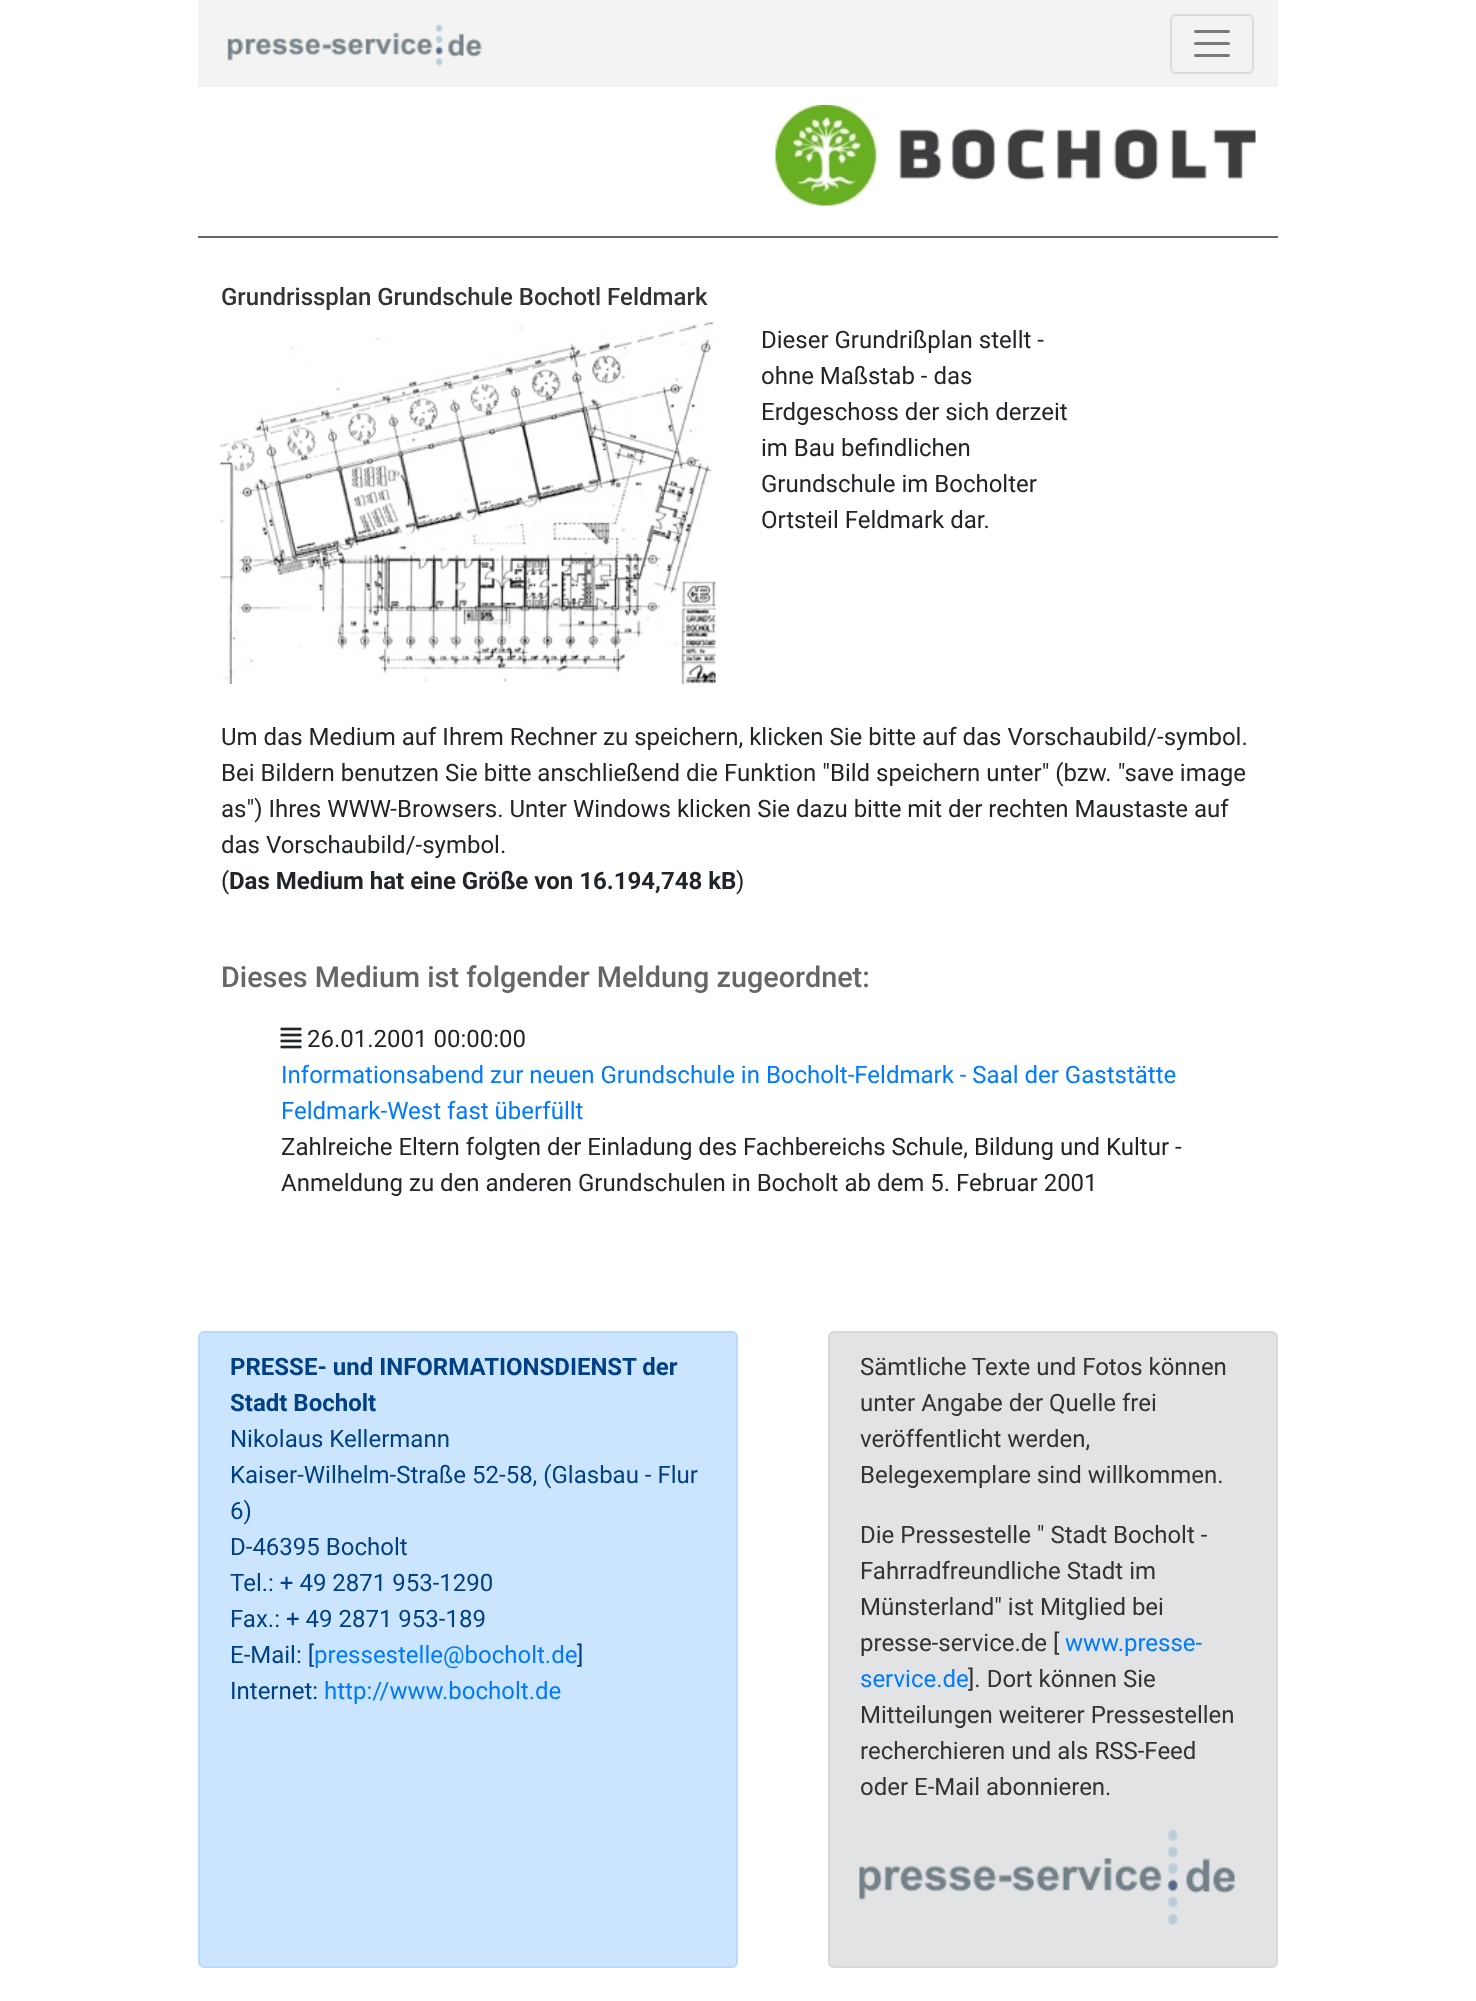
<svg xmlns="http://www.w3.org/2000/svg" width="1476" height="2001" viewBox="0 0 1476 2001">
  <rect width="100%" height="100%" fill="#ffffff"/>
  <rect x="198" y="0" width="1080" height="87" fill="#f3f3f3"/>
  <image x="227" y="24" width="255" height="43" href="img1.png"/>
  <rect x="1171" y="15" width="82" height="58" rx="5" fill="none" stroke="#dbdbdb" stroke-width="2"/>
  <path d="M1195.5 31.5H1228.5M1195.5 43.5H1228.5M1195.5 55.5H1228.5" fill="none" stroke="#7a7a7a" stroke-width="3" stroke-linecap="round"/>
  <rect x="198" y="236" width="1080" height="2" fill="#666666"/>
  <image x="775" y="105" width="481" height="101" href="img2.png"/>
  <text x="221" y="305" font-family="Roboto" font-size="24" font-weight="500" fill="#333333">Grundrissplan Grundschule Bochotl Feldmark</text>
  <image x="220" y="322" width="496" height="362" href="img3.png"/>
  <text x="761" y="348" font-family="Roboto" font-size="24" fill="#212529">Dieser Grundrißplan stellt -</text>
  <text x="761" y="384" font-family="Roboto" font-size="24" fill="#212529">ohne Maßstab - das</text>
  <text x="761" y="420" font-family="Roboto" font-size="24" fill="#212529">Erdgeschoss der sich derzeit</text>
  <text x="761" y="456" font-family="Roboto" font-size="24" fill="#212529">im Bau befindlichen</text>
  <text x="761" y="492" font-family="Roboto" font-size="24" fill="#212529">Grundschule im Bocholter</text>
  <text x="761" y="528" font-family="Roboto" font-size="24" fill="#212529">Ortsteil Feldmark dar.</text>
  <text x="221" y="745" font-family="Roboto" font-size="24" fill="#212529">Um das Medium auf Ihrem Rechner zu speichern, klicken Sie bitte auf das Vorschaubild/-symbol.</text>
  <text x="221" y="781" font-family="Roboto" font-size="24" fill="#212529">Bei Bildern benutzen Sie bitte anschließend die Funktion "Bild speichern unter" (bzw. "save image</text>
  <text x="221" y="817" font-family="Roboto" font-size="24" fill="#212529">as") Ihres WWW-Browsers. Unter Windows klicken Sie dazu bitte mit der rechten Maustaste auf</text>
  <text x="221" y="853" font-family="Roboto" font-size="24" fill="#212529">das Vorschaubild/-symbol.</text>
  <text x="221" y="889" font-family="Roboto" font-size="24" fill="#212529">(</text>
  <text x="229" y="889" font-family="Roboto" font-size="24" font-weight="bold" fill="#212529">Das Medium hat eine Größe von 16.194,748 kB</text>
  <text x="736" y="889" font-family="Roboto" font-size="24" fill="#212529">)</text>
  <text x="221" y="987" font-family="Roboto" font-size="28.8" font-weight="500" fill="#666666">Dieses Medium ist folgender Meldung zugeordnet:</text>
  <image x="280" y="1027" width="22" height="22" href="img4.png"/>
  <text x="307" y="1047" font-family="Roboto" font-size="24" fill="#212529">26.01.2001 00:00:00</text>
  <text x="281" y="1083" font-family="Roboto" font-size="24" fill="#007bff">Informationsabend zur neuen Grundschule in Bocholt-Feldmark - Saal der Gaststätte</text>
  <text x="281" y="1119" font-family="Roboto" font-size="24" fill="#007bff">Feldmark-West fast überfüllt</text>
  <text x="281" y="1155" font-family="Roboto" font-size="24" fill="#212529">Zahlreiche Eltern folgten der Einladung des Fachbereichs Schule, Bildung und Kultur -</text>
  <text x="281" y="1191" font-family="Roboto" font-size="24" fill="#212529">Anmeldung zu den anderen Grundschulen in Bocholt ab dem 5. Februar 2001</text>
  <rect x="199" y="1332" width="538" height="635" rx="5" fill="#cce5ff" stroke="#b8daff" stroke-width="2"/>
  <text x="230" y="1375" font-family="Roboto" font-size="24" font-weight="bold" fill="#004085">PRESSE- und INFORMATIONSDIENST der</text>
  <text x="230" y="1411" font-family="Roboto" font-size="24" font-weight="bold" fill="#004085">Stadt Bocholt</text>
  <text x="230" y="1447" font-family="Roboto" font-size="24" fill="#004085">Nikolaus Kellermann</text>
  <text x="230" y="1483" font-family="Roboto" font-size="24" fill="#004085">Kaiser-Wilhelm-Straße 52-58, (Glasbau - Flur</text>
  <text x="230" y="1519" font-family="Roboto" font-size="24" fill="#004085">6)</text>
  <text x="230" y="1555" font-family="Roboto" font-size="24" fill="#004085">D-46395 Bocholt</text>
  <text x="230" y="1591" font-family="Roboto" font-size="24" fill="#004085">Tel.: + 49 2871 953-1290</text>
  <text x="230" y="1627" font-family="Roboto" font-size="24" fill="#004085">Fax.: + 49 2871 953-189</text>
  <text x="230" y="1663" font-family="Roboto" font-size="24" fill="#004085">E-Mail: [</text>
  <text x="314" y="1663" font-family="Roboto" font-size="24" fill="#007bff">pressestelle@bocholt.de</text>
  <text x="577" y="1663" font-family="Roboto" font-size="24" fill="#004085">]</text>
  <text x="230" y="1699" font-family="Roboto" font-size="24" fill="#004085">Internet:</text>
  <text x="324" y="1699" font-family="Roboto" font-size="24" fill="#007bff">http://www.bocholt.de</text>
  <rect x="829" y="1332" width="448" height="635" rx="5" fill="#e2e3e5" stroke="#d6d8db" stroke-width="2"/>
  <text x="860" y="1375" font-family="Roboto" font-size="24" fill="#333333">Sämtliche Texte und Fotos können</text>
  <text x="860" y="1411" font-family="Roboto" font-size="24" fill="#333333">unter Angabe der Quelle frei</text>
  <text x="860" y="1447" font-family="Roboto" font-size="24" fill="#333333">veröffentlicht werden,</text>
  <text x="860" y="1483" font-family="Roboto" font-size="24" fill="#333333">Belegexemplare sind willkommen.</text>
  <text x="860" y="1543" font-family="Roboto" font-size="24" fill="#333333">Die Pressestelle " Stadt Bocholt -</text>
  <text x="860" y="1579" font-family="Roboto" font-size="24" fill="#333333">Fahrradfreundliche Stadt im</text>
  <text x="860" y="1615" font-family="Roboto" font-size="24" fill="#333333">Münsterland" ist Mitglied bei</text>
  <text x="860" y="1651" font-family="Roboto" font-size="24" fill="#333333">presse-service.de [</text>
  <text x="1065" y="1651" font-family="Roboto" font-size="24" fill="#007bff">www.presse-</text>
  <text x="860" y="1687" font-family="Roboto" font-size="24" fill="#007bff">service.de</text>
  <text x="968" y="1687" font-family="Roboto" font-size="24" fill="#333333">]. Dort können Sie</text>
  <text x="860" y="1723" font-family="Roboto" font-size="24" fill="#333333">Mitteilungen weiterer Pressestellen</text>
  <text x="860" y="1759" font-family="Roboto" font-size="24" fill="#333333">recherchieren und als RSS-Feed</text>
  <text x="860" y="1795" font-family="Roboto" font-size="24" fill="#333333">oder E-Mail abonnieren.</text>
  <image x="859" y="1830" width="376" height="95" href="img5.png"/>
</svg>
